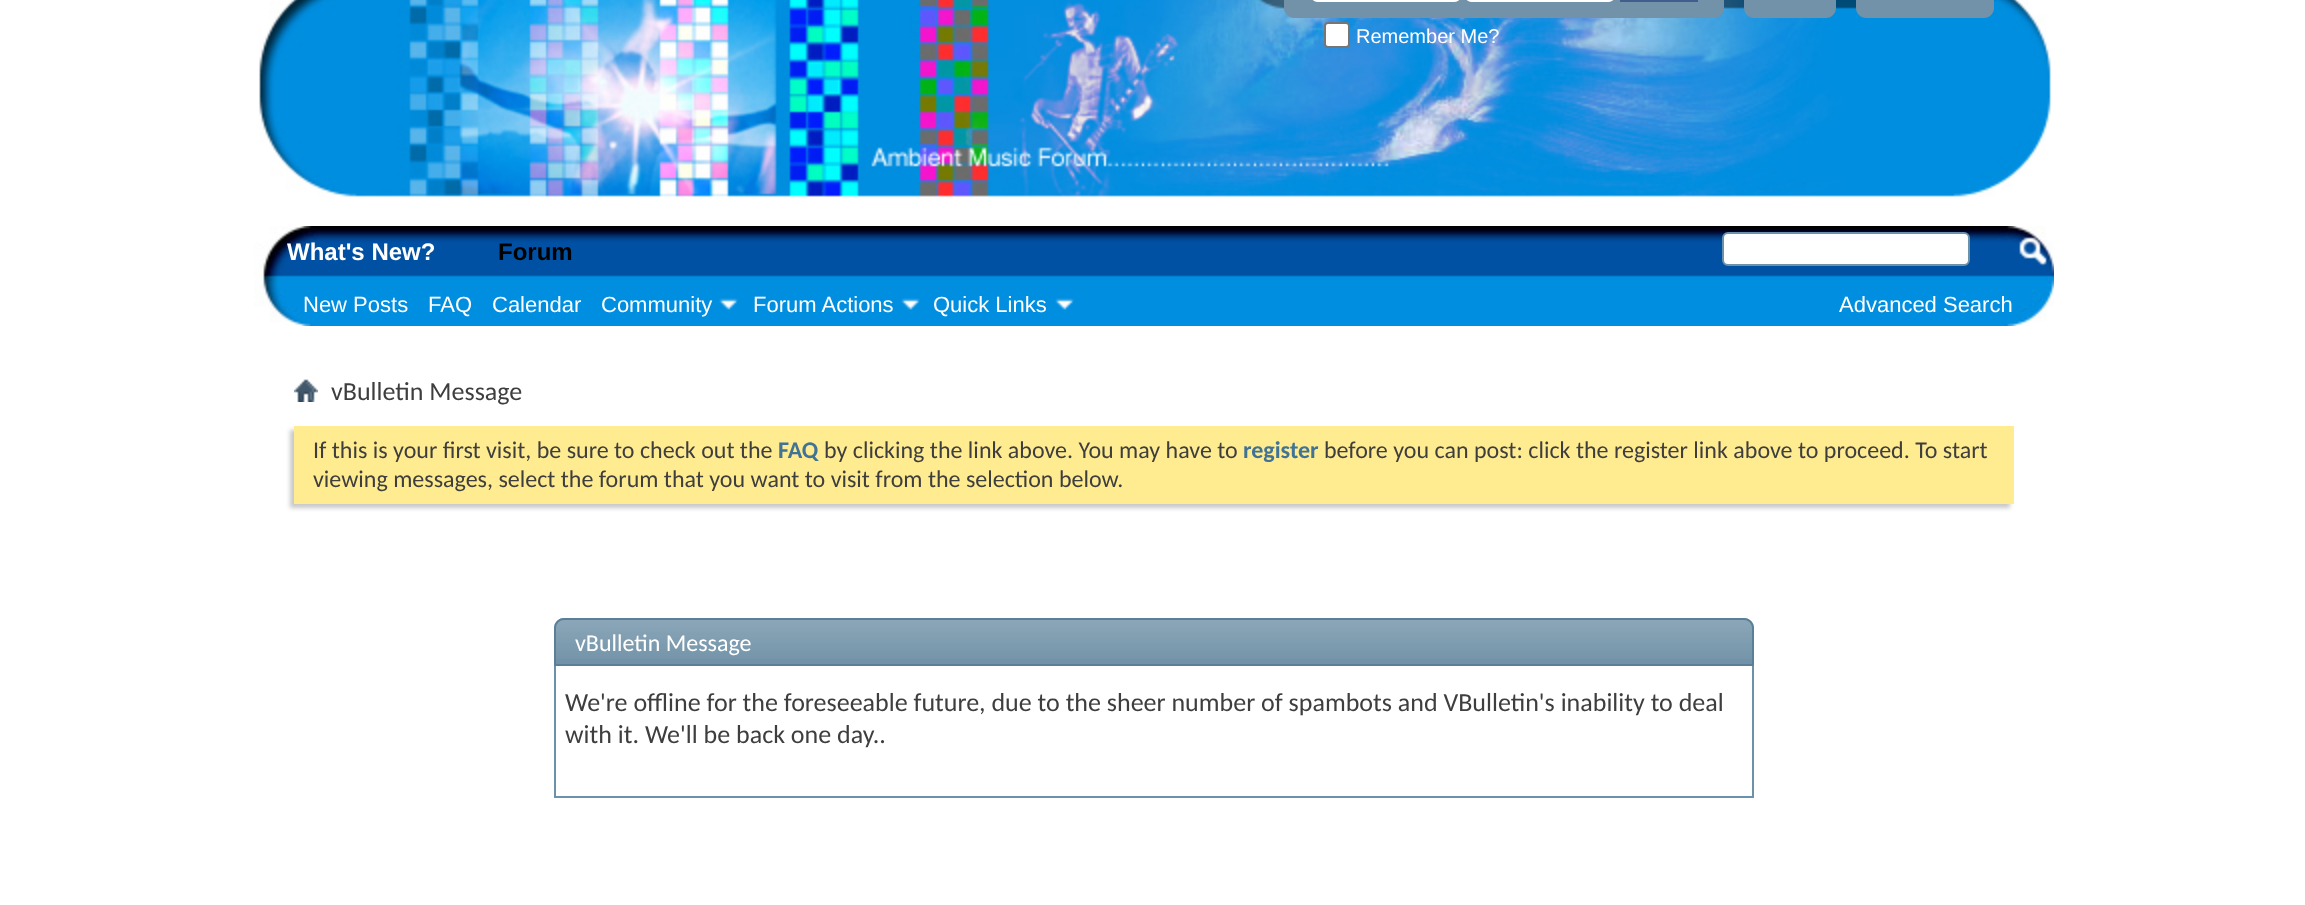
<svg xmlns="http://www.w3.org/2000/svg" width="2305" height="905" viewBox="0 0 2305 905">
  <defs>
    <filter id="blur1" x="-50%" y="-200%" width="200%" height="500%"><feGaussianBlur stdDeviation="2"/></filter>
  </defs>
  <rect width="100%" height="100%" fill="#ffffff"/>
  <image x="259" y="0" width="1792" height="197" href="img1.png"/>
  <path d="M1744-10H1836V8C1836 13.5 1831.5 18 1826 18H1754C1748.5 18 1744 13.5 1744 8Z" fill="#7192a8"/>
  <path d="M1856-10H1994V8C1994 13.5 1989.5 18 1984 18H1866C1860.5 18 1856 13.5 1856 8Z" fill="#7192a8"/>
  <path d="M1284-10H1724V8C1724 13.5 1719.5 18 1714 18H1294C1288.5 18 1284 13.5 1284 8Z" fill="#7192a8"/>
  <rect x="1312" y="-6" width="148" height="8" rx="6" fill="#ffffff"/>
  <rect x="1466" y="-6" width="148" height="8" rx="6" fill="#ffffff"/>
  <rect x="1621" y="-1" width="76" height="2" fill="none" stroke="#415d8d" stroke-width="2"/>
  <rect x="1325" y="23" width="24" height="24" rx="3" fill="#ffffff" stroke="#767676" stroke-width="2"/>
  <text x="1356" y="43" font-family="Liberation Sans" font-size="20" fill="#ffffff">Remember Me?</text>
  <image x="254" y="226" width="1800" height="100" href="img2.png"/>
  <text x="287" y="260" font-family="Liberation Sans" font-size="24" font-weight="bold" fill="#ffffff">What's New?</text>
  <text x="498" y="260" font-family="Liberation Sans" font-size="24" font-weight="bold" fill="#000000">Forum</text>
  <text x="303" y="312" font-family="Liberation Sans" font-size="22" fill="#ffffff">New Posts</text>
  <text x="428" y="312" font-family="Liberation Sans" font-size="22" fill="#ffffff">FAQ</text>
  <text x="492" y="312" font-family="Liberation Sans" font-size="22" fill="#ffffff">Calendar</text>
  <text x="601" y="312" font-family="Liberation Sans" font-size="22" fill="#ffffff">Community</text>
  <image x="719" y="298" width="19" height="12" href="img3.png"/>
  <text x="753" y="312" font-family="Liberation Sans" font-size="22" fill="#ffffff">Forum Actions</text>
  <image x="901" y="298" width="19" height="12" href="img3.png"/>
  <text x="933" y="312" font-family="Liberation Sans" font-size="22" fill="#ffffff">Quick Links</text>
  <image x="1055" y="298" width="19" height="12" href="img3.png"/>
  <rect x="1723" y="233" width="246" height="32" rx="5" fill="#ffffff" stroke="#6b91ab" stroke-width="2"/>
  <image x="2019" y="237" width="28" height="29" href="img4.png"/>
  <text x="1839" y="312" font-family="Liberation Sans" font-size="22" fill="#ffffff">Advanced Search</text>
  <image x="294" y="379" width="24" height="23" href="img5.png"/>
  <text x="331" y="400" font-family="Carlito" font-size="26" fill="#3e3e3e">vBulletin Message</text>
  <rect x="290" y="430" width="1720" height="78" fill="#c8c8c8" filter="url(#blur1)"/>
  <rect x="294" y="426" width="1720" height="78" fill="#ffeb90"/>
  <text x="313" y="458" font-family="Carlito" font-size="24" fill="#3e3e3e">If this is your first visit, be sure to check out the</text>
  <text x="778" y="458" font-family="Carlito" font-size="24" font-weight="bold" fill="#417394">FAQ</text>
  <text x="824" y="458" font-family="Carlito" font-size="24" fill="#3e3e3e">by clicking the link above. You may have to</text>
  <text x="1243" y="458" font-family="Carlito" font-size="24" font-weight="bold" fill="#417394">register</text>
  <text x="1324" y="458" font-family="Carlito" font-size="24" fill="#3e3e3e">before you can post: click the register link above to proceed. To start</text>
  <text x="313" y="487" font-family="Carlito" font-size="24" fill="#3e3e3e">viewing messages, select the forum that you want to visit from the selection below.</text>
  <path d="M564 618H1744C1749.5 618 1754 622.5 1754 628V666H554V628C554 622.5 558.5 618 564 618Z" fill="#7192a8"/>
  <image x="554" y="620" width="1200" height="39" href="img6.png"/>
  <path d="M564 619H1744C1749 619 1753 623 1753 628V665H555V628C555 623 559 619 564 619Z" fill="none" stroke="#5a7f97" stroke-width="2"/>
  <text x="575" y="651" font-family="Carlito" font-size="24" fill="#ffffff">vBulletin Message</text>
  <rect x="1752" y="666" width="2" height="132" fill="#6b91ab"/>
  <rect x="554" y="796" width="1200" height="2" fill="#6b91ab"/>
  <rect x="554" y="666" width="2" height="132" fill="#6b91ab"/>
  <text x="565" y="711" font-family="Carlito" font-size="26" fill="#3e3e3e">We're offline for the foreseeable future, due to the sheer number of spambots and VBulletin's inability to deal</text>
  <text x="565" y="743" font-family="Carlito" font-size="26" fill="#3e3e3e">with it. We'll be back one day..</text>
</svg>
